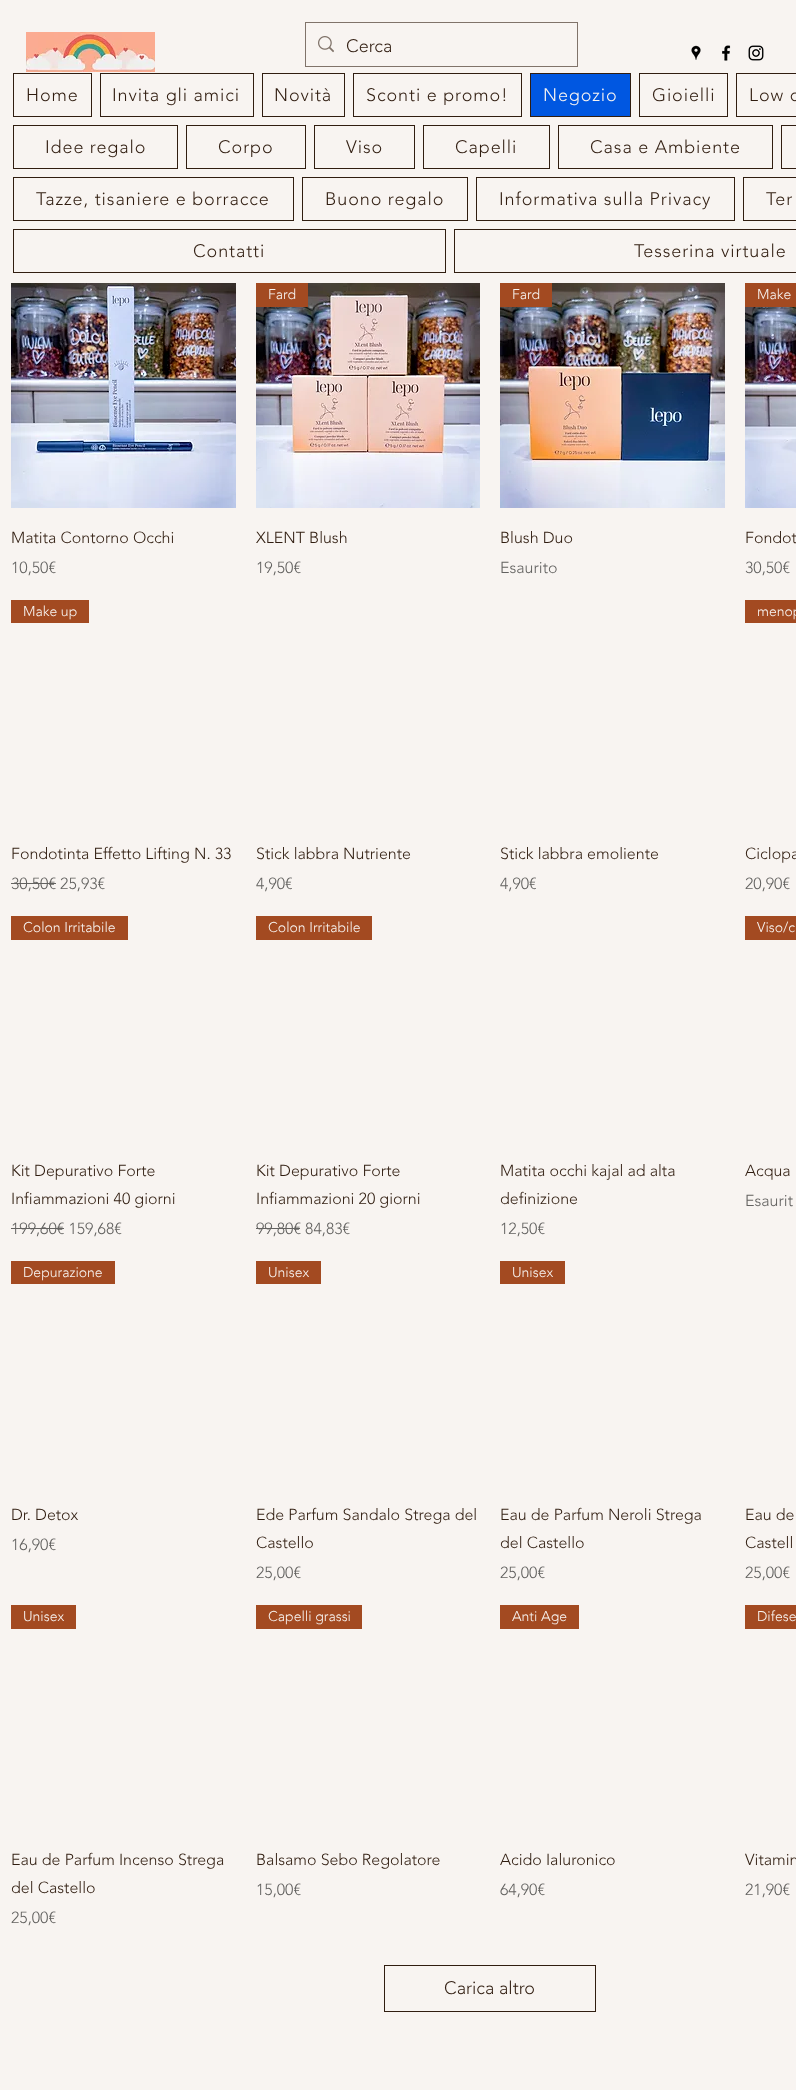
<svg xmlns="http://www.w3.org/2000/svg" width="796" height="2090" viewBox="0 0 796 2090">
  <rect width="100%" height="100%" fill="#f8f4f1"/>
  <image x="26" y="32" width="129" height="40" href="img1.png"/>
  <image x="691" y="45" width="10" height="15" href="img2.png"/>
  <image x="722" y="45" width="9" height="16" href="img3.png"/>
  <image x="748" y="45" width="16" height="16" href="img4.png"/>
  <rect x="305.5" y="22.5" width="272" height="44" fill="none" stroke="#80736a"/>
  <image x="318" y="36" width="16" height="17" href="img5.png"/>
  <text x="346" y="52" font-family="'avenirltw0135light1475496'" font-size="18" font-weight="300" fill="#301d10">Cerca</text>
  <rect x="13.5" y="73.5" width="78" height="43" fill="none" stroke="#301d10"/>
  <text x="26" y="101" font-family="'avenirltw0135light1475496'" font-size="18" font-weight="300" letter-spacing="0.9" fill="#301d10">Home</text>
  <rect x="100.5" y="73.5" width="153" height="43" fill="none" stroke="#301d10"/>
  <text x="112" y="101" font-family="'avenirltw0135light1475496'" font-size="18" font-weight="300" letter-spacing="0.9" fill="#301d10">Invita gli amici</text>
  <rect x="262.5" y="73.5" width="82" height="43" fill="none" stroke="#301d10"/>
  <text x="274" y="101" font-family="'avenirltw0135light1475496'" font-size="18" font-weight="300" letter-spacing="0.9" fill="#301d10">Novità</text>
  <rect x="353.5" y="73.5" width="168" height="43" fill="none" stroke="#301d10"/>
  <text x="366" y="101" font-family="'avenirltw0135light1475496'" font-size="18" font-weight="300" letter-spacing="0.9" fill="#301d10">Sconti e promo!</text>
  <rect x="530.5" y="73.5" width="100" height="43" fill="#0057e1" stroke="#301d10"/>
  <text x="543" y="101" font-family="'avenirltw0135light1475496'" font-size="18" font-weight="300" letter-spacing="0.9" fill="#f8f4f1">Negozio</text>
  <rect x="639.5" y="73.5" width="88" height="43" fill="none" stroke="#301d10"/>
  <text x="652" y="101" font-family="'avenirltw0135light1475496'" font-size="18" font-weight="300" letter-spacing="0.9" fill="#301d10">Gioielli</text>
  <rect x="736.5" y="73.5" width="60" height="43" fill="none" stroke="#301d10"/>
  <text x="749" y="101" font-family="'avenirltw0135light1475496'" font-size="18" font-weight="300" letter-spacing="0.9" fill="#301d10">Low c</text>
  <rect x="13.5" y="125.5" width="164" height="43" fill="none" stroke="#301d10"/>
  <text x="45" y="153" font-family="'avenirltw0135light1475496'" font-size="18" font-weight="300" letter-spacing="0.9" fill="#301d10">Idee regalo</text>
  <rect x="186.5" y="125.5" width="119" height="43" fill="none" stroke="#301d10"/>
  <text x="218" y="153" font-family="'avenirltw0135light1475496'" font-size="18" font-weight="300" letter-spacing="0.9" fill="#301d10">Corpo</text>
  <rect x="314.5" y="125.5" width="100" height="43" fill="none" stroke="#301d10"/>
  <text x="346" y="153" font-family="'avenirltw0135light1475496'" font-size="18" font-weight="300" letter-spacing="0.9" fill="#301d10">Viso</text>
  <rect x="423.5" y="125.5" width="126" height="43" fill="none" stroke="#301d10"/>
  <text x="455" y="153" font-family="'avenirltw0135light1475496'" font-size="18" font-weight="300" letter-spacing="0.9" fill="#301d10">Capelli</text>
  <rect x="558.5" y="125.5" width="214" height="43" fill="none" stroke="#301d10"/>
  <text x="590" y="153" font-family="'avenirltw0135light1475496'" font-size="18" font-weight="300" letter-spacing="0.9" fill="#301d10">Casa e Ambiente</text>
  <rect x="781.5" y="125.5" width="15" height="43" fill="none" stroke="#301d10"/>
  <rect x="13.5" y="177.5" width="280" height="43" fill="none" stroke="#301d10"/>
  <text x="36" y="205" font-family="'avenirltw0135light1475496'" font-size="18" font-weight="300" letter-spacing="0.9" fill="#301d10">Tazze, tisaniere e borracce</text>
  <rect x="302.5" y="177.5" width="165" height="43" fill="none" stroke="#301d10"/>
  <text x="325" y="205" font-family="'avenirltw0135light1475496'" font-size="18" font-weight="300" letter-spacing="0.9" fill="#301d10">Buono regalo</text>
  <rect x="476.5" y="177.5" width="258" height="43" fill="none" stroke="#301d10"/>
  <text x="499" y="205" font-family="'avenirltw0135light1475496'" font-size="18" font-weight="300" letter-spacing="0.9" fill="#301d10">Informativa sulla Privacy</text>
  <rect x="743.5" y="177.5" width="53" height="43" fill="none" stroke="#301d10"/>
  <text x="766" y="205" font-family="'avenirltw0135light1475496'" font-size="18" font-weight="300" letter-spacing="0.9" fill="#301d10">Ter</text>
  <rect x="13.5" y="229.5" width="432" height="43" fill="none" stroke="#301d10"/>
  <text x="193" y="257" font-family="'avenirltw0135light1475496'" font-size="18" font-weight="300" letter-spacing="0.9" fill="#301d10">Contatti</text>
  <rect x="454.5" y="229.5" width="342" height="43" fill="none" stroke="#301d10"/>
  <text x="634" y="257" font-family="'avenirltw0135light1475496'" font-size="18" font-weight="300" letter-spacing="0.9" fill="#301d10">Tesserina virtuale</text>
  <image x="11" y="283" width="225" height="225" href="img6.png"/>
  <text x="11" y="543" font-family="'avenirltw0135light1475496'" font-size="16" font-weight="300" fill="#301d10">Matita Contorno Occhi</text>
  <text x="11" y="573" font-family="'avenirltw0135light1475496'" font-size="16" font-weight="300" fill="#636260">10,50€</text>
  <image x="256" y="283" width="224" height="225" href="img7.png"/>
  <rect x="256" y="283" width="52" height="24" fill="#a34a21"/>
  <text x="268" y="299" font-family="'avenirltw0135light1475496'" font-size="14" font-weight="300" fill="#f8f4f1">Fard</text>
  <text x="256" y="543" font-family="'avenirltw0135light1475496'" font-size="16" font-weight="300" fill="#301d10">XLENT Blush</text>
  <text x="256" y="573" font-family="'avenirltw0135light1475496'" font-size="16" font-weight="300" fill="#636260">19,50€</text>
  <image x="500" y="283" width="225" height="225" href="img8.png"/>
  <rect x="500" y="283" width="52" height="24" fill="#a34a21"/>
  <text x="512" y="299" font-family="'avenirltw0135light1475496'" font-size="14" font-weight="300" fill="#f8f4f1">Fard</text>
  <text x="500" y="543" font-family="'avenirltw0135light1475496'" font-size="16" font-weight="300" fill="#301d10">Blush Duo</text>
  <text x="500" y="573" font-family="'avenirltw0135light1475496'" font-size="16" font-weight="300" fill="#636260">Esaurito</text>
  <rect x="745" y="283" width="51" height="24" fill="#a34a21"/>
  <text x="757" y="299" font-family="'avenirltw0135light1475496'" font-size="14" font-weight="300" fill="#f8f4f1">Make</text>
  <image x="745" y="307" width="51" height="201" href="img9.png"/>
  <text x="745" y="543" font-family="'avenirltw0135light1475496'" font-size="16" font-weight="300" fill="#301d10">Fondot</text>
  <text x="745" y="573" font-family="'avenirltw0135light1475496'" font-size="16" font-weight="300" fill="#636260">30,50€</text>
  <rect x="11" y="600" width="78" height="23" fill="#a34a21"/>
  <text x="23" y="616" font-family="'avenirltw0135light1475496'" font-size="14" font-weight="300" fill="#f8f4f1">Make up</text>
  <text x="11" y="859" font-family="'avenirltw0135light1475496'" font-size="16" font-weight="300" fill="#301d10">Fondotinta Effetto Lifting N. 33</text>
  <text x="11" y="889" font-family="'avenirltw0135light1475496'" font-size="16" font-weight="300" fill="#636260">30,50€ 25,93€</text>
  <rect x="11" y="883" width="45" height="1" fill="#636260"/>
  <text x="256" y="859" font-family="'avenirltw0135light1475496'" font-size="16" font-weight="300" fill="#301d10">Stick labbra Nutriente</text>
  <text x="256" y="889" font-family="'avenirltw0135light1475496'" font-size="16" font-weight="300" fill="#636260">4,90€</text>
  <text x="500" y="859" font-family="'avenirltw0135light1475496'" font-size="16" font-weight="300" fill="#301d10">Stick labbra emoliente</text>
  <text x="500" y="889" font-family="'avenirltw0135light1475496'" font-size="16" font-weight="300" fill="#636260">4,90€</text>
  <rect x="745" y="600" width="51" height="23" fill="#a34a21"/>
  <text x="757" y="616" font-family="'avenirltw0135light1475496'" font-size="14" font-weight="300" fill="#f8f4f1">menop</text>
  <text x="745" y="859" font-family="'avenirltw0135light1475496'" font-size="16" font-weight="300" fill="#301d10">Ciclopa</text>
  <text x="745" y="889" font-family="'avenirltw0135light1475496'" font-size="16" font-weight="300" fill="#636260">20,90€</text>
  <rect x="11" y="916" width="117" height="24" fill="#a34a21"/>
  <text x="23" y="932" font-family="'avenirltw0135light1475496'" font-size="14" font-weight="300" fill="#f8f4f1">Colon Irritabile</text>
  <text x="11" y="1176" font-family="'avenirltw0135light1475496'" font-size="16" font-weight="300" fill="#301d10">Kit Depurativo Forte</text>
  <text x="11" y="1204" font-family="'avenirltw0135light1475496'" font-size="16" font-weight="300" fill="#301d10">Infiammazioni 40 giorni</text>
  <text x="11" y="1234" font-family="'avenirltw0135light1475496'" font-size="16" font-weight="300" fill="#636260">199,60€ 159,68€</text>
  <rect x="11" y="1228" width="53" height="1" fill="#636260"/>
  <rect x="256" y="916" width="116" height="24" fill="#a34a21"/>
  <text x="268" y="932" font-family="'avenirltw0135light1475496'" font-size="14" font-weight="300" fill="#f8f4f1">Colon Irritabile</text>
  <text x="256" y="1176" font-family="'avenirltw0135light1475496'" font-size="16" font-weight="300" fill="#301d10">Kit Depurativo Forte</text>
  <text x="256" y="1204" font-family="'avenirltw0135light1475496'" font-size="16" font-weight="300" fill="#301d10">Infiammazioni 20 giorni</text>
  <text x="256" y="1234" font-family="'avenirltw0135light1475496'" font-size="16" font-weight="300" fill="#636260">99,80€ 84,83€</text>
  <rect x="256" y="1228" width="44" height="1" fill="#636260"/>
  <text x="500" y="1176" font-family="'avenirltw0135light1475496'" font-size="16" font-weight="300" fill="#301d10">Matita occhi kajal ad alta</text>
  <text x="500" y="1204" font-family="'avenirltw0135light1475496'" font-size="16" font-weight="300" fill="#301d10">definizione</text>
  <text x="500" y="1234" font-family="'avenirltw0135light1475496'" font-size="16" font-weight="300" fill="#636260">12,50€</text>
  <rect x="745" y="916" width="51" height="24" fill="#a34a21"/>
  <text x="757" y="932" font-family="'avenirltw0135light1475496'" font-size="14" font-weight="300" fill="#f8f4f1">Viso/c</text>
  <text x="745" y="1176" font-family="'avenirltw0135light1475496'" font-size="16" font-weight="300" fill="#301d10">Acqua</text>
  <text x="745" y="1206" font-family="'avenirltw0135light1475496'" font-size="16" font-weight="300" fill="#636260">Esaurit</text>
  <rect x="11" y="1261" width="104" height="23" fill="#a34a21"/>
  <text x="23" y="1277" font-family="'avenirltw0135light1475496'" font-size="14" font-weight="300" fill="#f8f4f1">Depurazione</text>
  <text x="11" y="1520" font-family="'avenirltw0135light1475496'" font-size="16" font-weight="300" fill="#301d10">Dr. Detox</text>
  <text x="11" y="1550" font-family="'avenirltw0135light1475496'" font-size="16" font-weight="300" fill="#636260">16,90€</text>
  <rect x="256" y="1261" width="65" height="23" fill="#a34a21"/>
  <text x="268" y="1277" font-family="'avenirltw0135light1475496'" font-size="14" font-weight="300" fill="#f8f4f1">Unisex</text>
  <text x="256" y="1520" font-family="'avenirltw0135light1475496'" font-size="16" font-weight="300" fill="#301d10">Ede Parfum Sandalo Strega del</text>
  <text x="256" y="1548" font-family="'avenirltw0135light1475496'" font-size="16" font-weight="300" fill="#301d10">Castello</text>
  <text x="256" y="1578" font-family="'avenirltw0135light1475496'" font-size="16" font-weight="300" fill="#636260">25,00€</text>
  <rect x="500" y="1261" width="65" height="23" fill="#a34a21"/>
  <text x="512" y="1277" font-family="'avenirltw0135light1475496'" font-size="14" font-weight="300" fill="#f8f4f1">Unisex</text>
  <text x="500" y="1520" font-family="'avenirltw0135light1475496'" font-size="16" font-weight="300" fill="#301d10">Eau de Parfum Neroli Strega</text>
  <text x="500" y="1548" font-family="'avenirltw0135light1475496'" font-size="16" font-weight="300" fill="#301d10">del Castello</text>
  <text x="500" y="1578" font-family="'avenirltw0135light1475496'" font-size="16" font-weight="300" fill="#636260">25,00€</text>
  <text x="745" y="1520" font-family="'avenirltw0135light1475496'" font-size="16" font-weight="300" fill="#301d10">Eau de</text>
  <text x="745" y="1548" font-family="'avenirltw0135light1475496'" font-size="16" font-weight="300" fill="#301d10">Castell</text>
  <text x="745" y="1578" font-family="'avenirltw0135light1475496'" font-size="16" font-weight="300" fill="#636260">25,00€</text>
  <rect x="11" y="1605" width="65" height="24" fill="#a34a21"/>
  <text x="23" y="1621" font-family="'avenirltw0135light1475496'" font-size="14" font-weight="300" fill="#f8f4f1">Unisex</text>
  <text x="11" y="1865" font-family="'avenirltw0135light1475496'" font-size="16" font-weight="300" fill="#301d10">Eau de Parfum Incenso Strega</text>
  <text x="11" y="1893" font-family="'avenirltw0135light1475496'" font-size="16" font-weight="300" fill="#301d10">del Castello</text>
  <text x="11" y="1923" font-family="'avenirltw0135light1475496'" font-size="16" font-weight="300" fill="#636260">25,00€</text>
  <rect x="256" y="1605" width="106" height="24" fill="#a34a21"/>
  <text x="268" y="1621" font-family="'avenirltw0135light1475496'" font-size="14" font-weight="300" fill="#f8f4f1">Capelli grassi</text>
  <text x="256" y="1865" font-family="'avenirltw0135light1475496'" font-size="16" font-weight="300" fill="#301d10">Balsamo Sebo Regolatore</text>
  <text x="256" y="1895" font-family="'avenirltw0135light1475496'" font-size="16" font-weight="300" fill="#636260">15,00€</text>
  <rect x="500" y="1605" width="79" height="24" fill="#a34a21"/>
  <text x="512" y="1621" font-family="'avenirltw0135light1475496'" font-size="14" font-weight="300" fill="#f8f4f1">Anti Age</text>
  <text x="500" y="1865" font-family="'avenirltw0135light1475496'" font-size="16" font-weight="300" fill="#301d10">Acido Ialuronico</text>
  <text x="500" y="1895" font-family="'avenirltw0135light1475496'" font-size="16" font-weight="300" fill="#636260">64,90€</text>
  <rect x="745" y="1605" width="51" height="24" fill="#a34a21"/>
  <text x="757" y="1621" font-family="'avenirltw0135light1475496'" font-size="14" font-weight="300" fill="#f8f4f1">Difese</text>
  <text x="745" y="1865" font-family="'avenirltw0135light1475496'" font-size="16" font-weight="300" fill="#301d10">Vitamin</text>
  <text x="745" y="1895" font-family="'avenirltw0135light1475496'" font-size="16" font-weight="300" fill="#636260">21,90€</text>
  <rect x="384.5" y="1965.5" width="211" height="46" fill="none" stroke="#301d10"/>
  <text x="444" y="1994" font-family="'avenirltw0135light1475496'" font-size="18" font-weight="300" fill="#301d10">Carica altro</text>
</svg>
